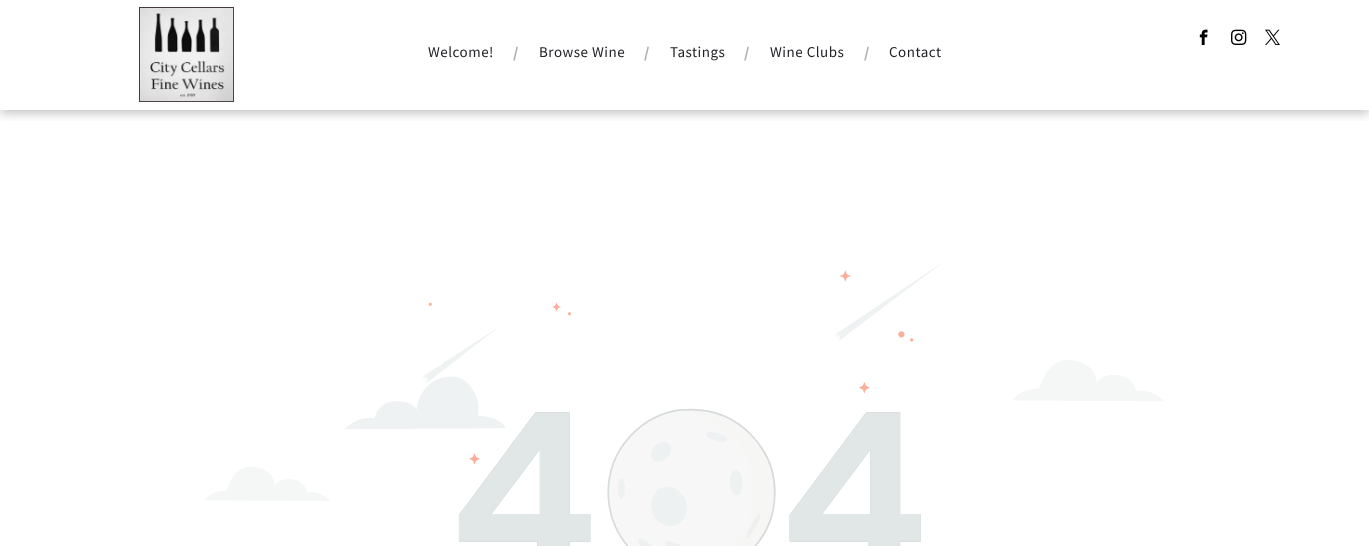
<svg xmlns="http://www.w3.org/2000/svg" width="1369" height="546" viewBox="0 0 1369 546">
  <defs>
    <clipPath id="clip1"><rect x="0" y="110" width="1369" height="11"/></clipPath>
    <filter id="blur1" x="-50%" y="-200%" width="200%" height="500%"><feGaussianBlur stdDeviation="5.5"/></filter>
  </defs>
  <rect width="100%" height="100%" fill="#ffffff"/>
  <g clip-path="url(#clip1)">
    <rect x="0" y="3" width="1369" height="110" fill="#000000" fill-opacity="0.25" filter="url(#blur1)"/>
  </g>
  <rect x="139.5" y="7.5" width="94" height="94" fill="none" stroke="#463939"/>
  <image x="140" y="8" width="94" height="94" href="img1.png"/>
  <image x="1199" y="29" width="9" height="16" href="img2.png"/>
  <image x="1231" y="29" width="16" height="16" href="img3.png"/>
  <image x="1265" y="29" width="15" height="16" href="img4.png"/>
  <text x="428" y="57" font-family="Source Sans Pro" font-size="15" letter-spacing="0.5" fill="#212226">Welcome!</text>
  <text x="513" y="58" font-family="Source Sans Pro" font-size="16" font-weight="bold" fill="#b0b0b0">/</text>
  <text x="539" y="57" font-family="Source Sans Pro" font-size="15" letter-spacing="0.5" fill="#212226">Browse Wine</text>
  <text x="644" y="58" font-family="Source Sans Pro" font-size="16" font-weight="bold" fill="#b0b0b0">/</text>
  <text x="670" y="57" font-family="Source Sans Pro" font-size="15" letter-spacing="0.5" fill="#212226">Tastings</text>
  <text x="744" y="58" font-family="Source Sans Pro" font-size="16" font-weight="bold" fill="#b0b0b0">/</text>
  <text x="770" y="57" font-family="Source Sans Pro" font-size="15" letter-spacing="0.5" fill="#212226">Wine Clubs</text>
  <text x="864" y="58" font-family="Source Sans Pro" font-size="16" font-weight="bold" fill="#b0b0b0">/</text>
  <text x="889" y="57" font-family="Source Sans Pro" font-size="15" letter-spacing="0.5" fill="#212226">Contact</text>
  <image x="205" y="262" width="959" height="284" href="img5.png"/>
</svg>
